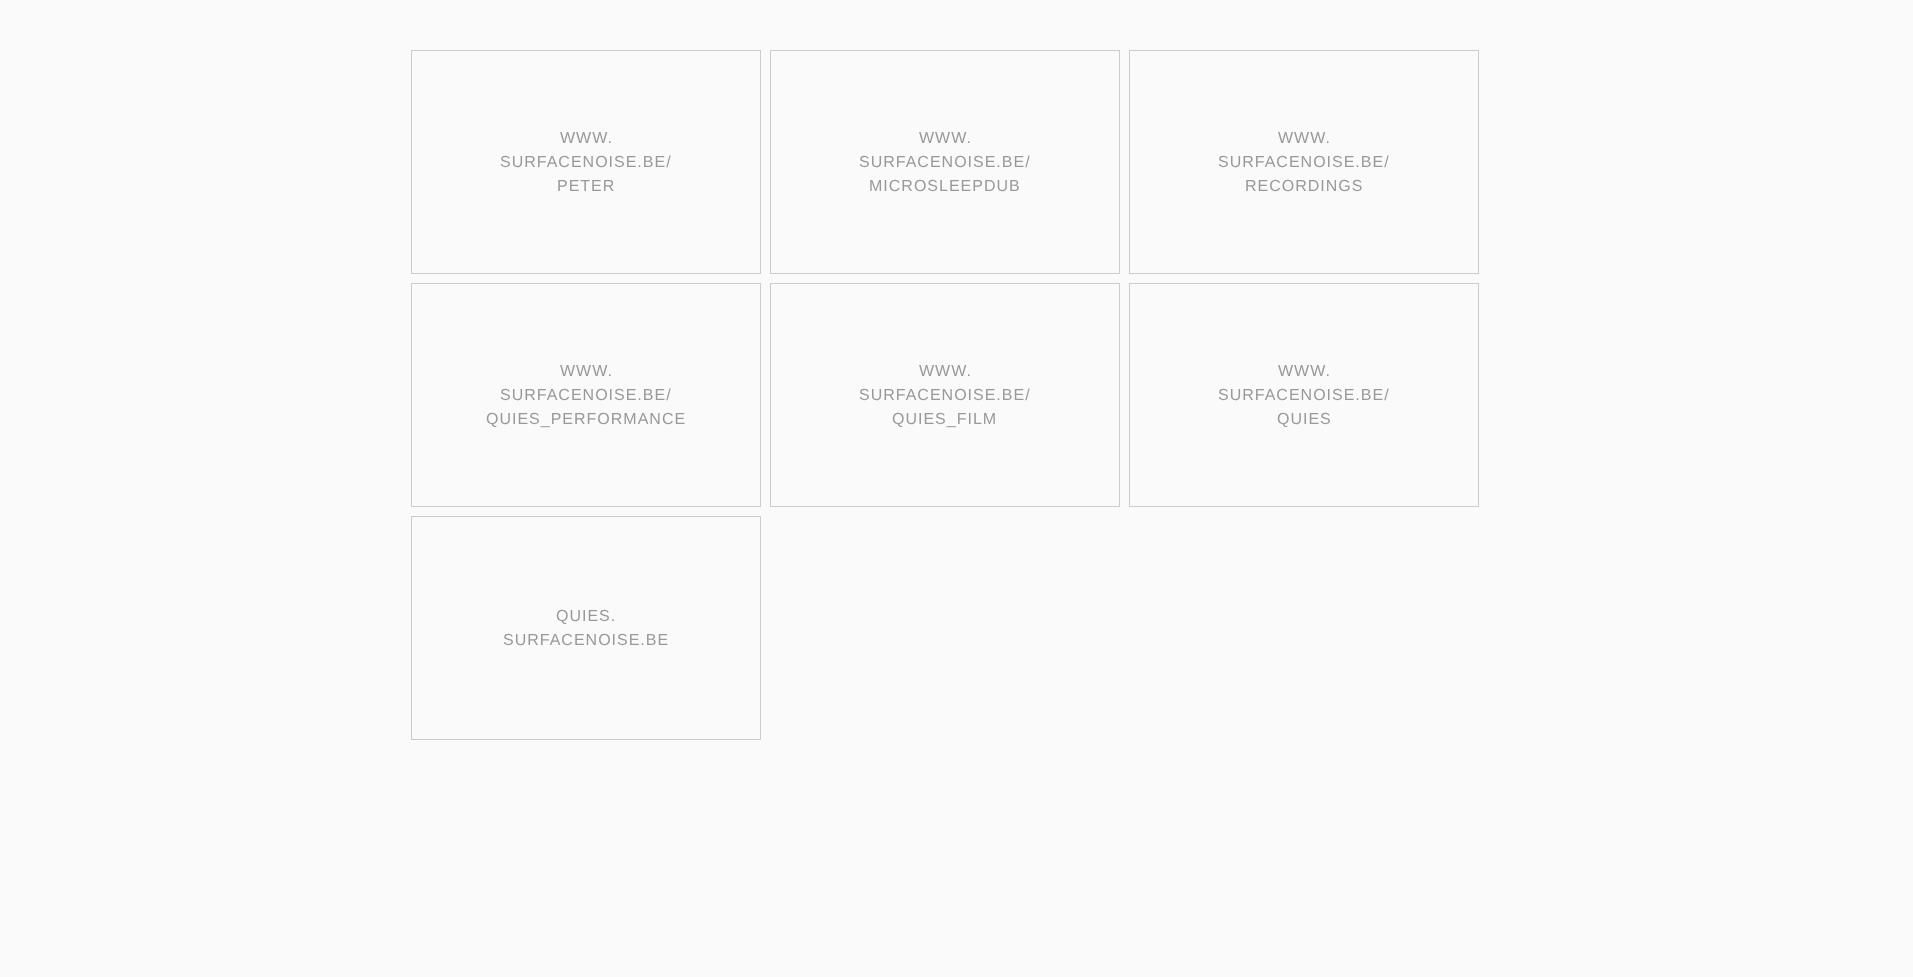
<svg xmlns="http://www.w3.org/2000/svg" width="1913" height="977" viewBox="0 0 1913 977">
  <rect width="100%" height="100%" fill="#fafafa"/>
  <rect x="411.5" y="50.5" width="349" height="223" fill="none" stroke="#cccccc"/>
  <text x="560" y="143" font-family="Liberation Sans" font-size="16" letter-spacing="1" fill="#999999">WWW.</text>
  <text x="500" y="167" font-family="Liberation Sans" font-size="16" letter-spacing="1" fill="#999999">SURFACENOISE.BE/</text>
  <text x="557" y="191" font-family="Liberation Sans" font-size="16" letter-spacing="1" fill="#999999">PETER</text>
  <rect x="770.5" y="50.5" width="349" height="223" fill="none" stroke="#cccccc"/>
  <text x="919" y="143" font-family="Liberation Sans" font-size="16" letter-spacing="1" fill="#999999">WWW.</text>
  <text x="859" y="167" font-family="Liberation Sans" font-size="16" letter-spacing="1" fill="#999999">SURFACENOISE.BE/</text>
  <text x="869" y="191" font-family="Liberation Sans" font-size="16" letter-spacing="1" fill="#999999">MICROSLEEPDUB</text>
  <rect x="1129.5" y="50.5" width="349" height="223" fill="none" stroke="#cccccc"/>
  <text x="1278" y="143" font-family="Liberation Sans" font-size="16" letter-spacing="1" fill="#999999">WWW.</text>
  <text x="1218" y="167" font-family="Liberation Sans" font-size="16" letter-spacing="1" fill="#999999">SURFACENOISE.BE/</text>
  <text x="1245" y="191" font-family="Liberation Sans" font-size="16" letter-spacing="1" fill="#999999">RECORDINGS</text>
  <rect x="411.5" y="283.5" width="349" height="223" fill="none" stroke="#cccccc"/>
  <text x="560" y="376" font-family="Liberation Sans" font-size="16" letter-spacing="1" fill="#999999">WWW.</text>
  <text x="500" y="400" font-family="Liberation Sans" font-size="16" letter-spacing="1" fill="#999999">SURFACENOISE.BE/</text>
  <text x="486" y="424" font-family="Liberation Sans" font-size="16" letter-spacing="1" fill="#999999">QUIES_PERFORMANCE</text>
  <rect x="770.5" y="283.5" width="349" height="223" fill="none" stroke="#cccccc"/>
  <text x="919" y="376" font-family="Liberation Sans" font-size="16" letter-spacing="1" fill="#999999">WWW.</text>
  <text x="859" y="400" font-family="Liberation Sans" font-size="16" letter-spacing="1" fill="#999999">SURFACENOISE.BE/</text>
  <text x="892" y="424" font-family="Liberation Sans" font-size="16" letter-spacing="1" fill="#999999">QUIES_FILM</text>
  <rect x="1129.5" y="283.5" width="349" height="223" fill="none" stroke="#cccccc"/>
  <text x="1278" y="376" font-family="Liberation Sans" font-size="16" letter-spacing="1" fill="#999999">WWW.</text>
  <text x="1218" y="400" font-family="Liberation Sans" font-size="16" letter-spacing="1" fill="#999999">SURFACENOISE.BE/</text>
  <text x="1277" y="424" font-family="Liberation Sans" font-size="16" letter-spacing="1" fill="#999999">QUIES</text>
  <rect x="411.5" y="516.5" width="349" height="223" fill="none" stroke="#cccccc"/>
  <text x="556" y="621" font-family="Liberation Sans" font-size="16" letter-spacing="1" fill="#999999">QUIES.</text>
  <text x="503" y="645" font-family="Liberation Sans" font-size="16" letter-spacing="1" fill="#999999">SURFACENOISE.BE</text>
</svg>
